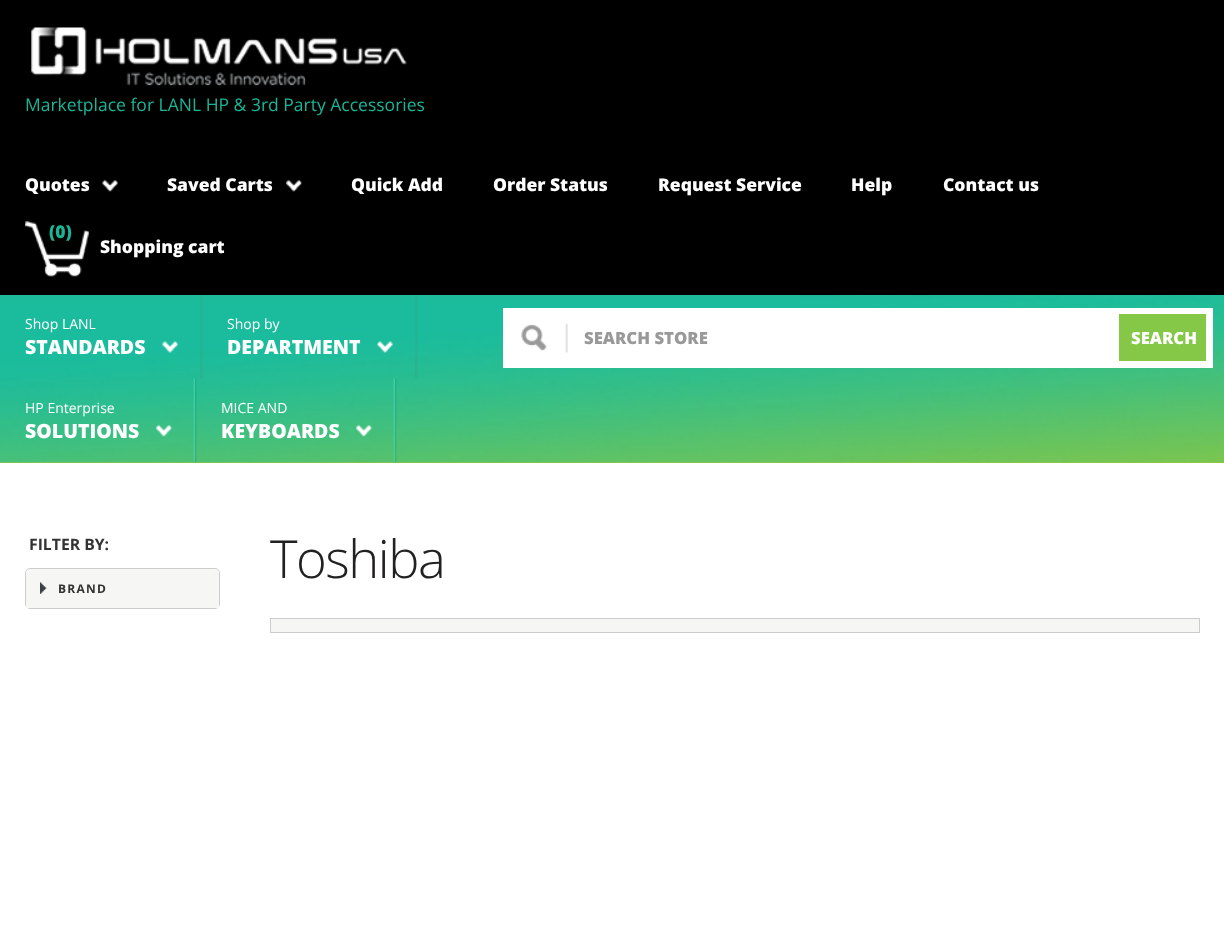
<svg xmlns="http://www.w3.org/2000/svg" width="1224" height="946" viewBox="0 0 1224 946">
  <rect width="100%" height="100%" fill="#ffffff"/>
  <rect x="0" y="0" width="1224" height="295" fill="#000000"/>
  <image x="31" y="27" width="376" height="59" href="img1.png"/>
  <text x="25" y="111" font-family="Open Sans" font-size="17.5" fill="#1ab597">Marketplace for LANL HP &amp; 3rd Party Accessories</text>
  <text x="25" y="191" font-family="Open Sans" font-size="17.5" font-weight="800" fill="#ffffff">Quotes</text>
  <image x="102" y="180" width="16" height="12" href="img2.png"/>
  <text x="167" y="191" font-family="Open Sans" font-size="17.5" font-weight="800" fill="#ffffff">Saved Carts</text>
  <image x="286" y="180" width="16" height="12" href="img3.png"/>
  <text x="351" y="191" font-family="Open Sans" font-size="17.5" font-weight="800" fill="#ffffff">Quick Add</text>
  <text x="493" y="191" font-family="Open Sans" font-size="17.5" font-weight="800" fill="#ffffff">Order Status</text>
  <text x="658" y="191" font-family="Open Sans" font-size="17.5" font-weight="800" fill="#ffffff">Request Service</text>
  <text x="851" y="191" font-family="Open Sans" font-size="17.5" font-weight="800" fill="#ffffff">Help</text>
  <text x="943" y="191" font-family="Open Sans" font-size="17.5" font-weight="800" fill="#ffffff">Contact us</text>
  <image x="25" y="221" width="64" height="56" href="img4.png"/>
  <text x="49" y="238" font-family="Open Sans" font-size="17.5" font-weight="800" fill="#1ab597">(0)</text>
  <text x="100" y="253" font-family="Open Sans" font-size="17.5" font-weight="800" fill="#ffffff">Shopping cart</text>
  <rect x="0" y="462" width="1224" height="1" fill="#a6c92d"/>
  <image x="0" y="295" width="1224" height="168" href="img5.png"/>
  <rect x="200" y="295" width="3" height="84" fill="#31a98a" fill-opacity="0.38"/>
  <text x="25" y="329" font-family="Open Sans" font-size="14" fill="#ffffff">Shop LANL</text>
  <image x="162" y="341" width="16" height="12" href="img6.png"/>
  <text x="25" y="354" font-family="Open Sans" font-size="19.5" font-weight="800" fill="#ffffff">STANDARDS</text>
  <rect x="415" y="295" width="3" height="84" fill="#31a98a" fill-opacity="0.38"/>
  <text x="227" y="329" font-family="Open Sans" font-size="14" fill="#ffffff">Shop by</text>
  <image x="377" y="341" width="16" height="12" href="img7.png"/>
  <text x="227" y="354" font-family="Open Sans" font-size="19.5" font-weight="800" fill="#ffffff">DEPARTMENT</text>
  <image x="193" y="378" width="4" height="85" href="img8.png"/>
  <text x="25" y="413" font-family="Open Sans" font-size="14" fill="#ffffff">HP Enterprise</text>
  <image x="156" y="425" width="16" height="12" href="img9.png"/>
  <text x="25" y="438" font-family="Open Sans" font-size="19.5" font-weight="800" fill="#ffffff">SOLUTIONS</text>
  <image x="393" y="378" width="4" height="85" href="img10.png"/>
  <text x="221" y="413" font-family="Open Sans" font-size="14" fill="#ffffff">MICE AND</text>
  <image x="356" y="425" width="16" height="12" href="img11.png"/>
  <text x="221" y="438" font-family="Open Sans" font-size="19.5" font-weight="800" fill="#ffffff">KEYBOARDS</text>
  <rect x="503" y="308" width="710" height="60" fill="#ffffff"/>
  <image x="521" y="323" width="47" height="30" href="img12.png"/>
  <text x="584" y="344" font-family="Open Sans" font-size="16.75" font-weight="800" fill="#999999">SEARCH STORE</text>
  <rect x="1119" y="314" width="87" height="47" fill="#85c747"/>
  <text x="1131" y="344" font-family="Open Sans" font-size="16.75" font-weight="800" fill="#ffffff">SEARCH</text>
  <text x="29" y="550" font-family="Open Sans" font-size="15.75" font-weight="bold" fill="#333333">FILTER BY:</text>
  <rect x="25.5" y="568.5" width="194" height="40" rx="4.5" fill="none" stroke="#cccccc"/>
  <path d="M32 569H213C216.5 569 219 571.5 219 575V608H26V575C26 571.5 28.5 569 32 569Z" fill="#f6f6f4"/>
  <image x="40" y="582" width="7" height="12" href="img13.png"/>
  <text x="58" y="593" font-family="Open Sans" font-size="12" font-weight="bold" letter-spacing="1.25" fill="#333333">BRAND</text>
  <text x="270" y="578" font-family="Open Sans" font-size="52.5" font-weight="300" letter-spacing="-1.5" fill="#222020">Toshiba</text>
  <rect x="270.5" y="618.5" width="929" height="14" fill="#f6f6f4" stroke="#cccccc"/>
</svg>
